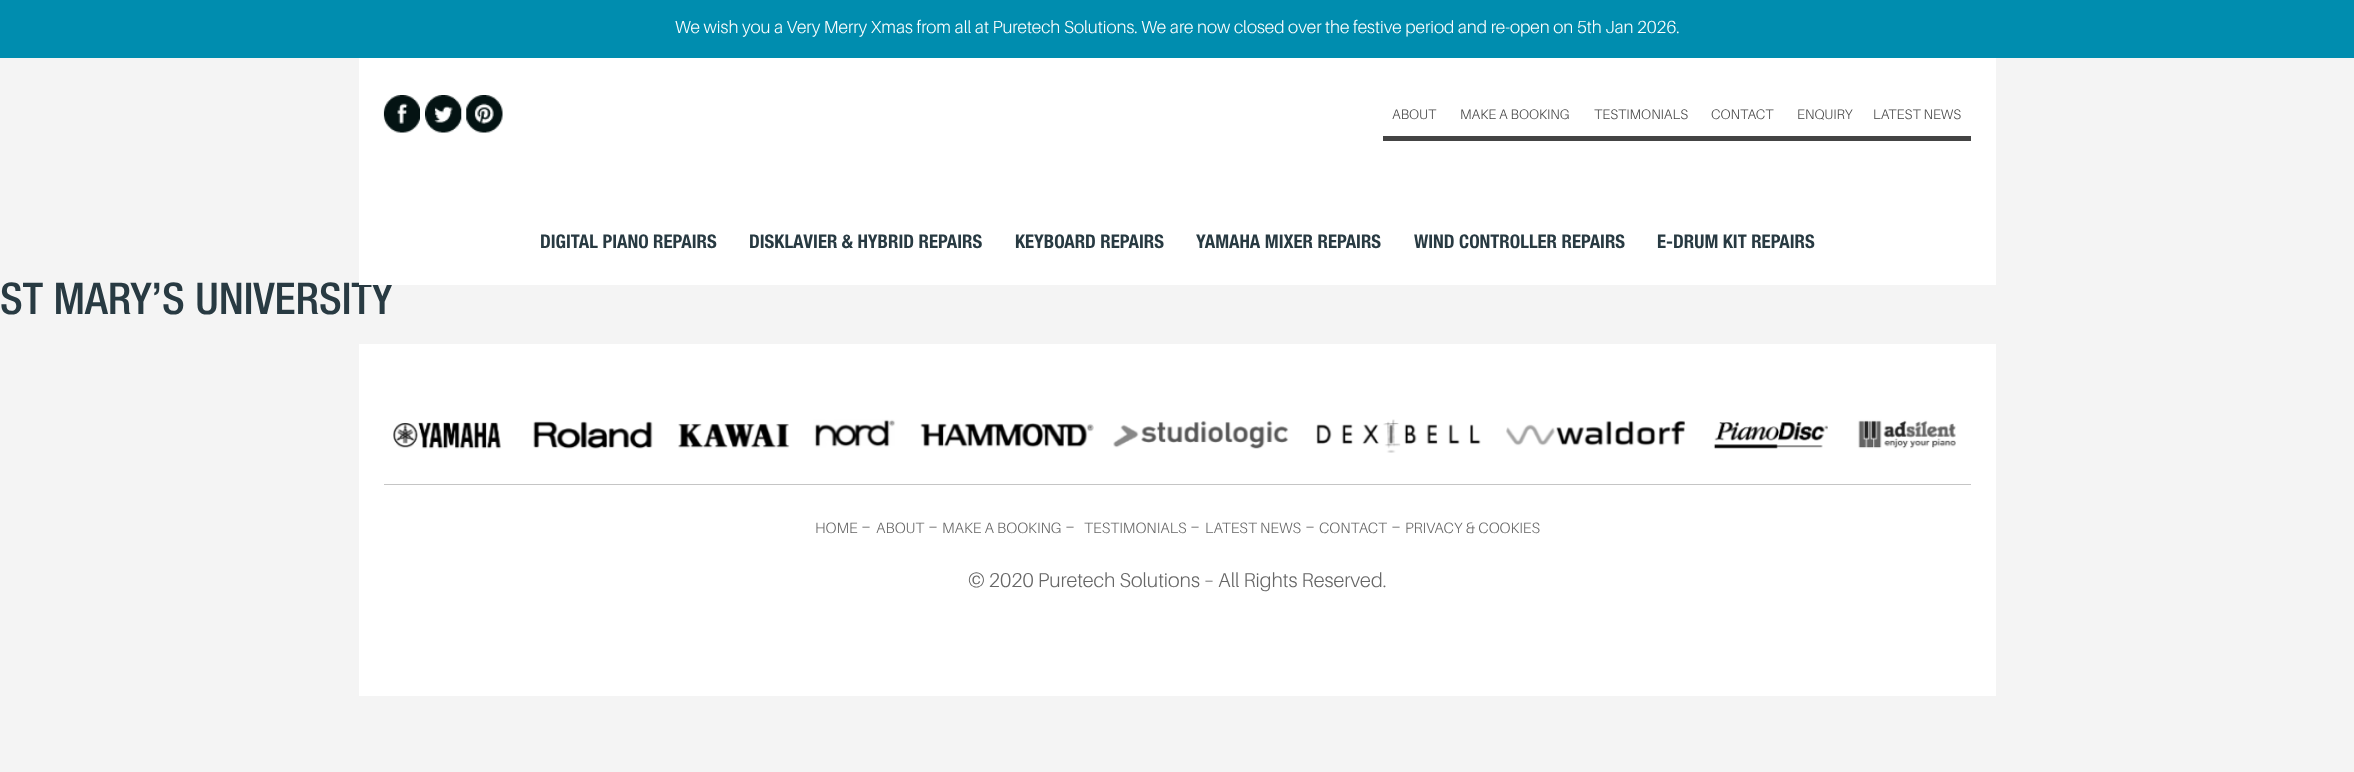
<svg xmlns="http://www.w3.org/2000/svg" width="2354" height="772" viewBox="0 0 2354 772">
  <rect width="100%" height="100%" fill="#f4f4f4"/>
  <rect x="0" y="0" width="2354" height="58" fill="#008daf"/>
  <text x="675" y="33" font-family="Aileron" font-size="17.5" font-weight="300" fill="#ffffff">We wish you a Very Merry Xmas from all at Puretech Solutions. We are now closed over the festive period and re-open on 5th Jan 2026.</text>
  <text x="0" y="314" font-family="Helvetica Neue" font-size="43.75" font-weight="500" fill="#283a42">ST MARY’S UNIVERSITY</text>
  <rect x="359" y="58" width="1637" height="227" fill="#ffffff"/>
  <image x="383" y="95" width="37" height="38" href="img1.png"/>
  <image x="425" y="95" width="37" height="38" href="img2.png"/>
  <image x="466" y="95" width="37" height="38" href="img3.png"/>
  <rect x="1383" y="136" width="588" height="5" fill="#444444"/>
  <text x="1392" y="119" font-family="Aileron" font-size="13.75" font-weight="300" fill="#444444">ABOUT</text>
  <text x="1460" y="119" font-family="Aileron" font-size="13.75" font-weight="300" fill="#444444">MAKE A BOOKING</text>
  <text x="1594" y="119" font-family="Aileron" font-size="13.75" font-weight="300" fill="#444444">TESTIMONIALS</text>
  <text x="1711" y="119" font-family="Aileron" font-size="13.75" font-weight="300" fill="#444444">CONTACT</text>
  <text x="1797" y="119" font-family="Aileron" font-size="13.75" font-weight="300" fill="#444444">ENQUIRY</text>
  <text x="1873" y="119" font-family="Aileron" font-size="13.75" font-weight="300" fill="#444444">LATEST NEWS</text>
  <text x="540" y="248" font-family="Helvetica Neue" font-size="18.75" font-weight="bold" fill="#283a42">DIGITAL PIANO REPAIRS</text>
  <text x="749" y="248" font-family="Helvetica Neue" font-size="18.75" font-weight="bold" fill="#283a42">DISKLAVIER &amp; HYBRID REPAIRS</text>
  <text x="1015" y="248" font-family="Helvetica Neue" font-size="18.75" font-weight="bold" fill="#283a42">KEYBOARD REPAIRS</text>
  <text x="1196" y="248" font-family="Helvetica Neue" font-size="18.75" font-weight="bold" fill="#283a42">YAMAHA MIXER REPAIRS</text>
  <text x="1414" y="248" font-family="Helvetica Neue" font-size="18.75" font-weight="bold" fill="#283a42">WIND CONTROLLER REPAIRS</text>
  <text x="1657" y="248" font-family="Helvetica Neue" font-size="18.75" font-weight="bold" fill="#283a42">E-DRUM KIT REPAIRS</text>
  <rect x="359" y="344" width="1637" height="352" fill="#ffffff"/>
  <image x="393" y="419" width="1563" height="34" href="img4.png"/>
  <rect x="384" y="484" width="1587" height="1" fill="#c5c5c5"/>
  <text x="815" y="533" font-family="Aileron" font-size="15" font-weight="300" fill="#666666">HOME</text>
  <text x="861" y="533" font-family="Aileron" font-size="20" font-weight="300" fill="#666666">–</text>
  <text x="876" y="533" font-family="Aileron" font-size="15" font-weight="300" fill="#666666">ABOUT</text>
  <text x="928" y="533" font-family="Aileron" font-size="20" font-weight="300" fill="#666666">–</text>
  <text x="942" y="533" font-family="Aileron" font-size="15" font-weight="300" fill="#666666">MAKE A BOOKING</text>
  <text x="1065" y="533" font-family="Aileron" font-size="20" font-weight="300" fill="#666666">–</text>
  <text x="1084" y="533" font-family="Aileron" font-size="15" font-weight="300" fill="#666666">TESTIMONIALS</text>
  <text x="1190" y="533" font-family="Aileron" font-size="20" font-weight="300" fill="#666666">–</text>
  <text x="1205" y="533" font-family="Aileron" font-size="15" font-weight="300" fill="#666666">LATEST NEWS</text>
  <text x="1305" y="533" font-family="Aileron" font-size="20" font-weight="300" fill="#666666">–</text>
  <text x="1319" y="533" font-family="Aileron" font-size="15" font-weight="300" fill="#666666">CONTACT</text>
  <text x="1391" y="533" font-family="Aileron" font-size="20" font-weight="300" fill="#666666">–</text>
  <text x="1405" y="533" font-family="Aileron" font-size="15" font-weight="300" fill="#666666">PRIVACY &amp; COOKIES</text>
  <text x="968" y="587" font-family="Aileron" font-size="20" font-weight="300" fill="#666666">© 2020 Puretech Solutions – All Rights Reserved.</text>
</svg>
